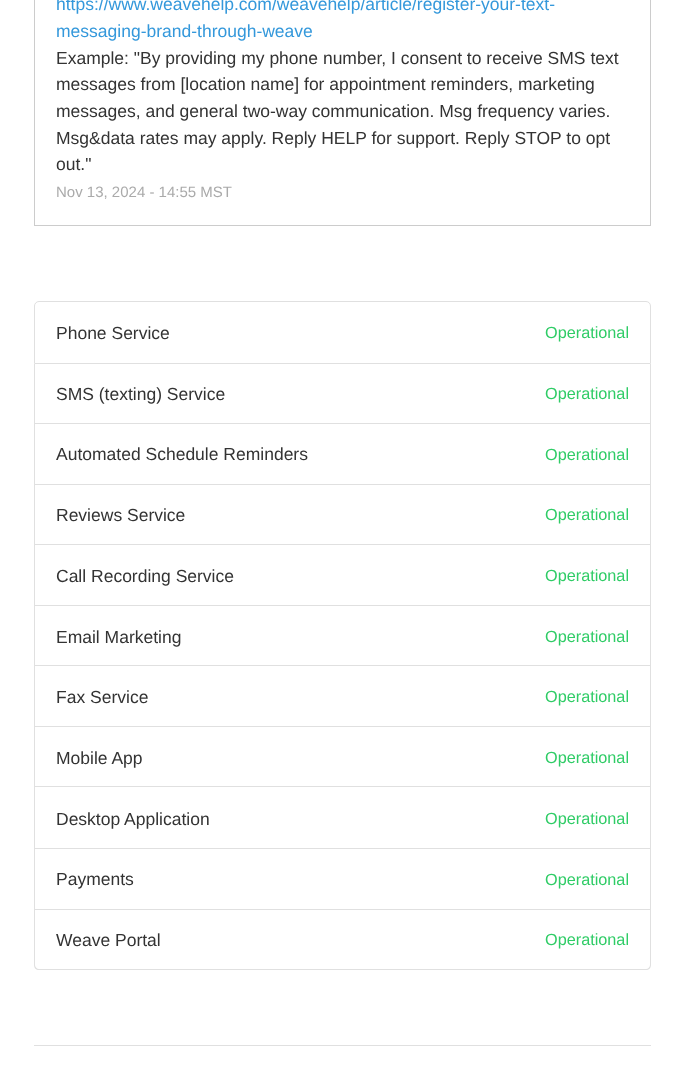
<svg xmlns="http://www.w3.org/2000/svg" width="684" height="1075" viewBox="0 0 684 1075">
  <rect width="100%" height="100%" fill="#ffffff"/>
  <rect x="650" y="0" width="1" height="226" fill="#cccccc"/>
  <rect x="34" y="225" width="617" height="1" fill="#cccccc"/>
  <rect x="34" y="0" width="1" height="226" fill="#cccccc"/>
  <text x="56" y="10" font-family="Liberation Sans" font-size="17.5" fill="#3498db">https://www.weavehelp.com/weavehelp/article/register-your-text-</text>
  <text x="56" y="37" font-family="Liberation Sans" font-size="17.5" fill="#3498db">messaging-brand-through-weave</text>
  <text x="56" y="64" font-family="Liberation Sans" font-size="17.5" fill="#333333">Example: "By providing my phone number, I consent to receive SMS text</text>
  <text x="56" y="90" font-family="Liberation Sans" font-size="17.5" fill="#333333">messages from [location name] for appointment reminders, marketing</text>
  <text x="56" y="117" font-family="Liberation Sans" font-size="17.5" fill="#333333">messages, and general two-way communication. Msg frequency varies.</text>
  <text x="56" y="144" font-family="Liberation Sans" font-size="17.5" fill="#333333">Msg&amp;data rates may apply. Reply HELP for support. Reply STOP to opt</text>
  <text x="56" y="170" font-family="Liberation Sans" font-size="17.5" fill="#333333">out."</text>
  <text x="56" y="197" font-family="Liberation Sans" font-size="15" fill="#aaaaaa">Nov 13, 2024 - 14:55 MST</text>
  <path d="M39 301.5H646C648.5 301.5 650.5 303.5 650.5 306V363.5H34.5V306C34.5 303.5 36.5 301.5 39 301.5Z" fill="none" stroke="#e0e0e0"/>
  <text x="56" y="339" font-family="Liberation Sans" font-size="17.5" fill="#333333">Phone Service</text>
  <text x="545" y="338" font-family="Liberation Sans" font-size="16.25" fill="#2fcc66">Operational</text>
  <rect x="650" y="364" width="1" height="546" fill="#e0e0e0"/>
  <rect x="34" y="423" width="617" height="1" fill="#e0e0e0"/>
  <rect x="34" y="364" width="1" height="60" fill="#e0e0e0"/>
  <text x="56" y="400" font-family="Liberation Sans" font-size="17.5" fill="#333333">SMS (texting) Service</text>
  <text x="545" y="399" font-family="Liberation Sans" font-size="16.25" fill="#2fcc66">Operational</text>
  <rect x="34" y="484" width="617" height="1" fill="#e0e0e0"/>
  <rect x="34" y="424" width="1" height="61" fill="#e0e0e0"/>
  <text x="56" y="460" font-family="Liberation Sans" font-size="17.5" fill="#333333">Automated Schedule Reminders</text>
  <text x="545" y="460" font-family="Liberation Sans" font-size="16.25" fill="#2fcc66">Operational</text>
  <rect x="34" y="544" width="617" height="1" fill="#e0e0e0"/>
  <rect x="34" y="485" width="1" height="60" fill="#e0e0e0"/>
  <text x="56" y="521" font-family="Liberation Sans" font-size="17.5" fill="#333333">Reviews Service</text>
  <text x="545" y="520" font-family="Liberation Sans" font-size="16.25" fill="#2fcc66">Operational</text>
  <rect x="34" y="605" width="617" height="1" fill="#e0e0e0"/>
  <rect x="34" y="545" width="1" height="61" fill="#e0e0e0"/>
  <text x="56" y="582" font-family="Liberation Sans" font-size="17.5" fill="#333333">Call Recording Service</text>
  <text x="545" y="581" font-family="Liberation Sans" font-size="16.25" fill="#2fcc66">Operational</text>
  <rect x="34" y="665" width="617" height="1" fill="#e0e0e0"/>
  <rect x="34" y="606" width="1" height="60" fill="#e0e0e0"/>
  <text x="56" y="643" font-family="Liberation Sans" font-size="17.5" fill="#333333">Email Marketing</text>
  <text x="545" y="642" font-family="Liberation Sans" font-size="16.25" fill="#2fcc66">Operational</text>
  <rect x="34" y="726" width="617" height="1" fill="#e0e0e0"/>
  <rect x="34" y="666" width="1" height="62" fill="#e0e0e0"/>
  <text x="56" y="703" font-family="Liberation Sans" font-size="17.5" fill="#333333">Fax Service</text>
  <text x="545" y="702" font-family="Liberation Sans" font-size="16.25" fill="#2fcc66">Operational</text>
  <rect x="34" y="786" width="617" height="1" fill="#e0e0e0"/>
  <rect x="34" y="728" width="1" height="60" fill="#e0e0e0"/>
  <text x="56" y="764" font-family="Liberation Sans" font-size="17.5" fill="#333333">Mobile App</text>
  <text x="545" y="763" font-family="Liberation Sans" font-size="16.25" fill="#2fcc66">Operational</text>
  <rect x="34" y="848" width="617" height="1" fill="#e0e0e0"/>
  <rect x="34" y="788" width="1" height="61" fill="#e0e0e0"/>
  <text x="56" y="825" font-family="Liberation Sans" font-size="17.5" fill="#333333">Desktop Application</text>
  <text x="545" y="824" font-family="Liberation Sans" font-size="16.25" fill="#2fcc66">Operational</text>
  <rect x="34" y="909" width="617" height="1" fill="#e0e0e0"/>
  <rect x="34" y="849" width="1" height="61" fill="#e0e0e0"/>
  <text x="56" y="885" font-family="Liberation Sans" font-size="17.5" fill="#333333">Payments</text>
  <text x="545" y="885" font-family="Liberation Sans" font-size="16.25" fill="#2fcc66">Operational</text>
  <path d="M34 910H651V965C651 968 649 970 646 970H39C36 970 34 968 34 965ZM35 910H650V965C650 967 648 969 646 969H39C37 969 35 967 35 965Z" fill="#e0e0e0" fill-rule="evenodd"/>
  <text x="56" y="946" font-family="Liberation Sans" font-size="17.5" fill="#333333">Weave Portal</text>
  <text x="545" y="945" font-family="Liberation Sans" font-size="16.25" fill="#2fcc66">Operational</text>
  <rect x="34" y="1045" width="617" height="1" fill="#e0e0e0"/>
</svg>
